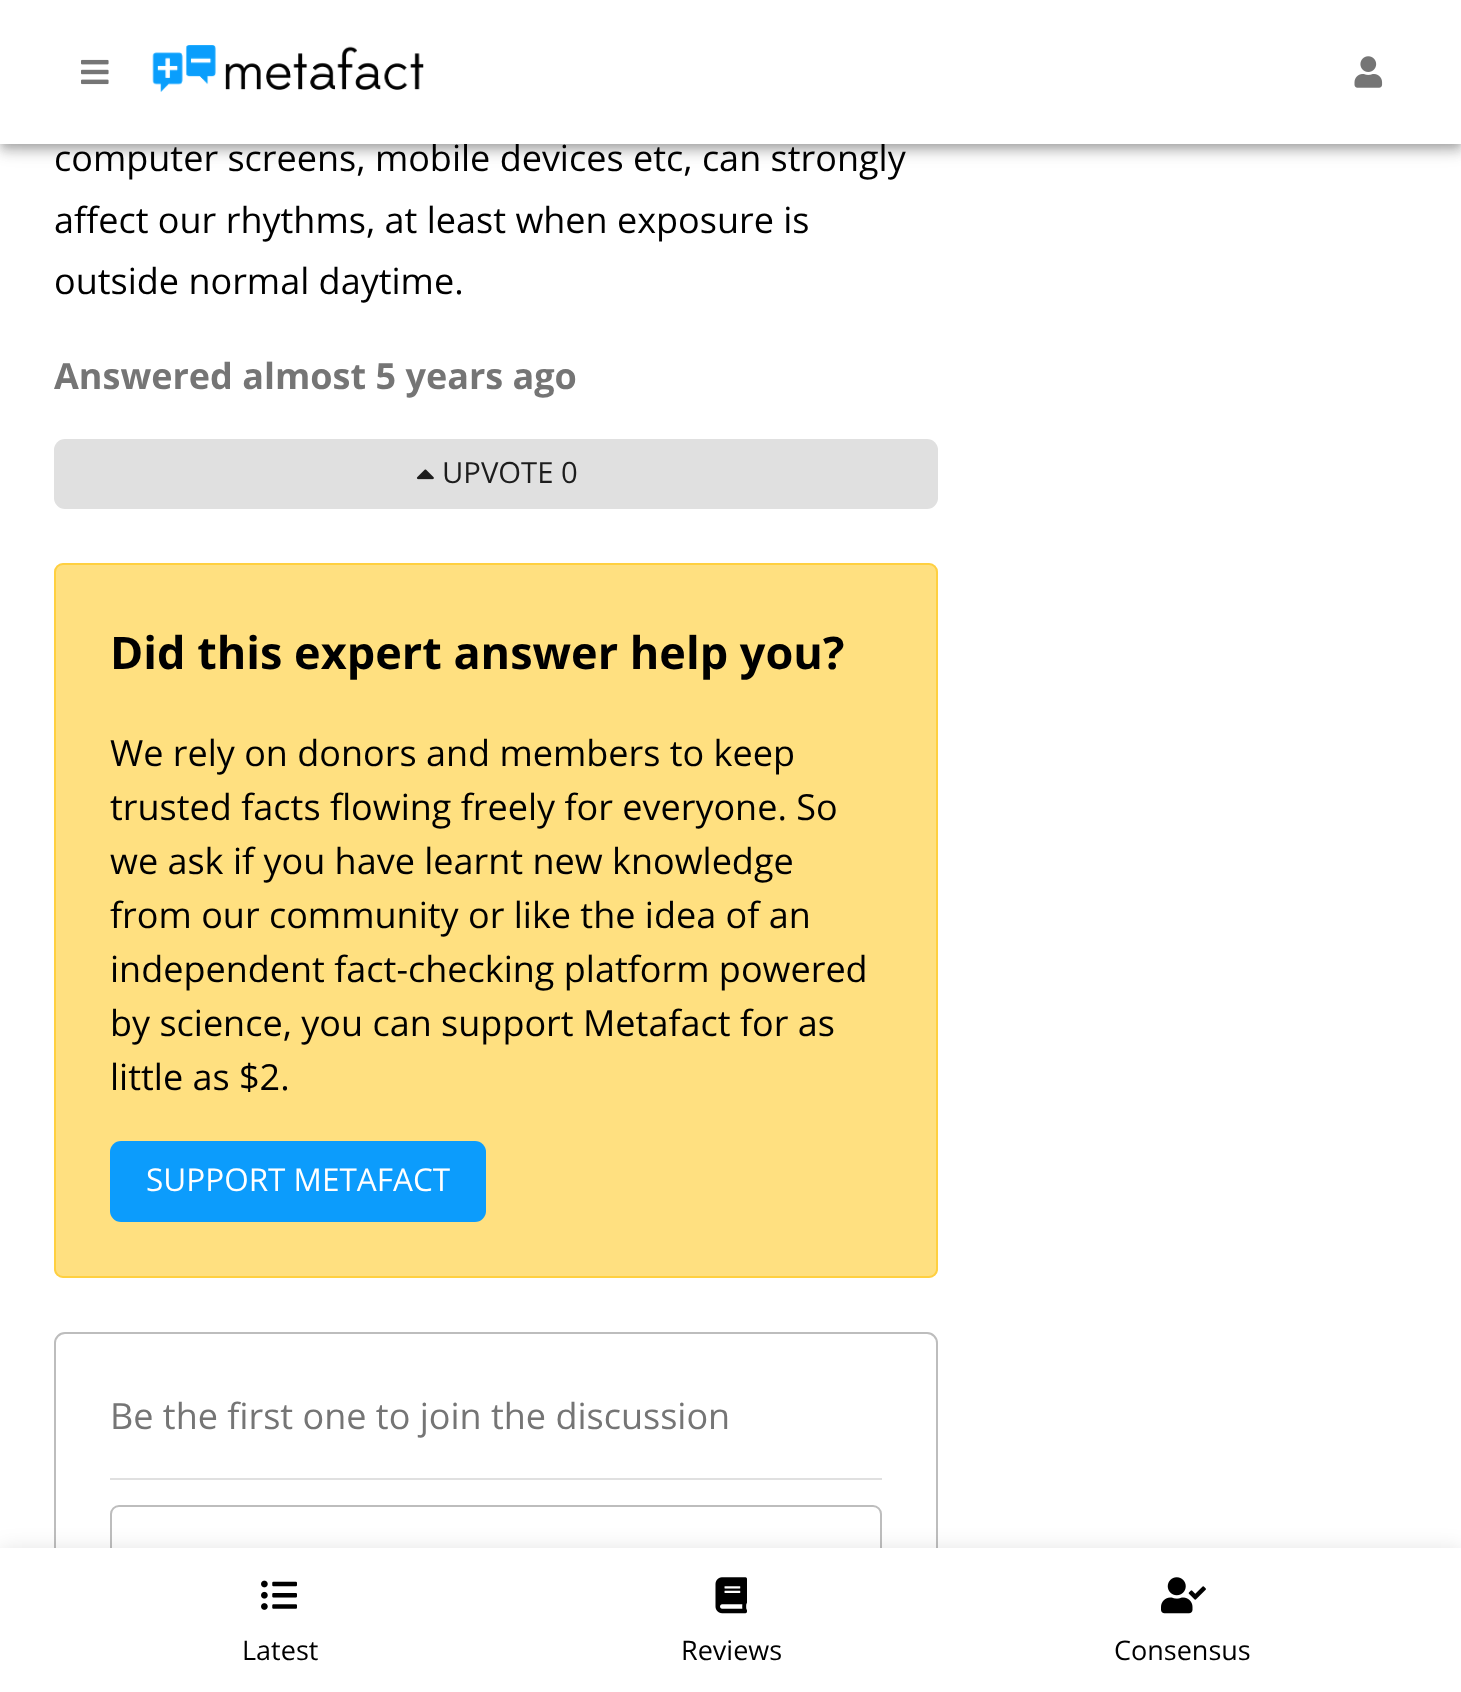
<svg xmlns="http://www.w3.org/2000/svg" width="1461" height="1692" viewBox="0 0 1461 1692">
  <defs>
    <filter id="blur1" x="-50%" y="-200%" width="200%" height="500%"><feGaussianBlur stdDeviation="11"/></filter>
    <filter id="blur2" x="-50%" y="-200%" width="200%" height="500%"><feGaussianBlur stdDeviation="5.5"/></filter>
    <filter id="blur3" x="-50%" y="-200%" width="200%" height="500%"><feGaussianBlur stdDeviation="4.5"/></filter>
  </defs>
  <rect width="100%" height="100%" fill="#ffffff"/>
  <text x="54" y="171" font-family="Open Sans" font-size="36" fill="#000000">computer screens, mobile devices etc, can strongly</text>
  <text x="54" y="233" font-family="Open Sans" font-size="36" fill="#000000">affect our rhythms, at least when exposure is</text>
  <text x="54" y="294" font-family="Open Sans" font-size="36" fill="#000000">outside normal daytime.</text>
  <text x="54" y="389" font-family="Open Sans" font-size="36" font-weight="bold" fill="#757575">Answered almost 5 years ago</text>
  <rect x="54" y="439" width="884" height="70" rx="11" fill="#e0e0e0"/>
  <image x="416" y="469" width="18" height="11" href="img1.png"/>
  <text x="442" y="483" font-family="Open Sans" font-size="29.25" fill="#1d1d1d">UPVOTE 0</text>
  <rect x="54" y="563" width="884" height="715" rx="9" fill="#ffe080"/>
  <rect x="55" y="564" width="882" height="713" rx="8" fill="none" stroke="#ffc000" stroke-opacity="0.5" stroke-width="2"/>
  <text x="110" y="669" font-family="Open Sans" font-size="45" font-weight="bold" fill="#000000">Did this expert answer help you?</text>
  <text x="110" y="766" font-family="Open Sans" font-size="36" fill="#000000">We rely on donors and members to keep</text>
  <text x="110" y="820" font-family="Open Sans" font-size="36" fill="#000000">trusted facts flowing freely for everyone. So</text>
  <text x="110" y="874" font-family="Open Sans" font-size="36" fill="#000000">we ask if you have learnt new knowledge</text>
  <text x="110" y="928" font-family="Open Sans" font-size="36" fill="#000000">from our community or like the idea of an</text>
  <text x="110" y="982" font-family="Open Sans" font-size="36" fill="#000000">independent fact-checking platform powered</text>
  <text x="110" y="1036" font-family="Open Sans" font-size="36" fill="#000000">by science, you can support Metafact for as</text>
  <text x="110" y="1090" font-family="Open Sans" font-size="36" fill="#000000">little as $2.</text>
  <rect x="110" y="1141" width="376" height="81" rx="11" fill="#0c9cfc"/>
  <text x="146" y="1191" font-family="Open Sans" font-size="31.5" fill="#ffffff">SUPPORT METAFACT</text>
  <rect x="55" y="1333" width="882" height="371" rx="10" fill="none" stroke="#bdbdbd" stroke-width="2"/>
  <text x="110" y="1429" font-family="Open Sans" font-size="36" fill="#757575">Be the first one to join the discussion</text>
  <rect x="110" y="1478" width="772" height="2" fill="#e0e0e0"/>
  <rect x="111" y="1506" width="770" height="136" rx="8" fill="none" stroke="#bdbdbd" stroke-width="2"/>
  <rect x="0" y="2" width="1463" height="144" fill="#000000" fill-opacity="0.12" filter="url(#blur1)"/>
  <rect x="0" y="9" width="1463" height="144" fill="#000000" fill-opacity="0.14" filter="url(#blur2)"/>
  <rect x="2" y="7" width="1458" height="139" fill="#000000" fill-opacity="0.2" filter="url(#blur3)"/>
  <rect x="0" y="0" width="1461" height="144" fill="#ffffff"/>
  <image x="81" y="59" width="28" height="26" href="img2.png"/>
  <image x="152" y="45" width="272" height="47" href="img3.png"/>
  <image x="1354" y="56" width="29" height="32" href="img4.png"/>
  <rect x="0" y="1550" width="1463" height="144" fill="#000000" fill-opacity="0.12" filter="url(#blur1)"/>
  <rect x="0" y="1548" width="1461" height="144" fill="#ffffff"/>
  <image x="261" y="1580" width="36" height="30" href="img5.png"/>
  <text x="242" y="1660" font-family="Open Sans" font-size="27" fill="#000000">Latest</text>
  <image x="715" y="1577" width="32" height="37" href="img6.png"/>
  <text x="681" y="1660" font-family="Open Sans" font-size="27" fill="#000000">Reviews</text>
  <image x="1161" y="1577" width="45" height="37" href="img7.png"/>
  <text x="1114" y="1660" font-family="Open Sans" font-size="27" fill="#000000">Consensus</text>
</svg>
